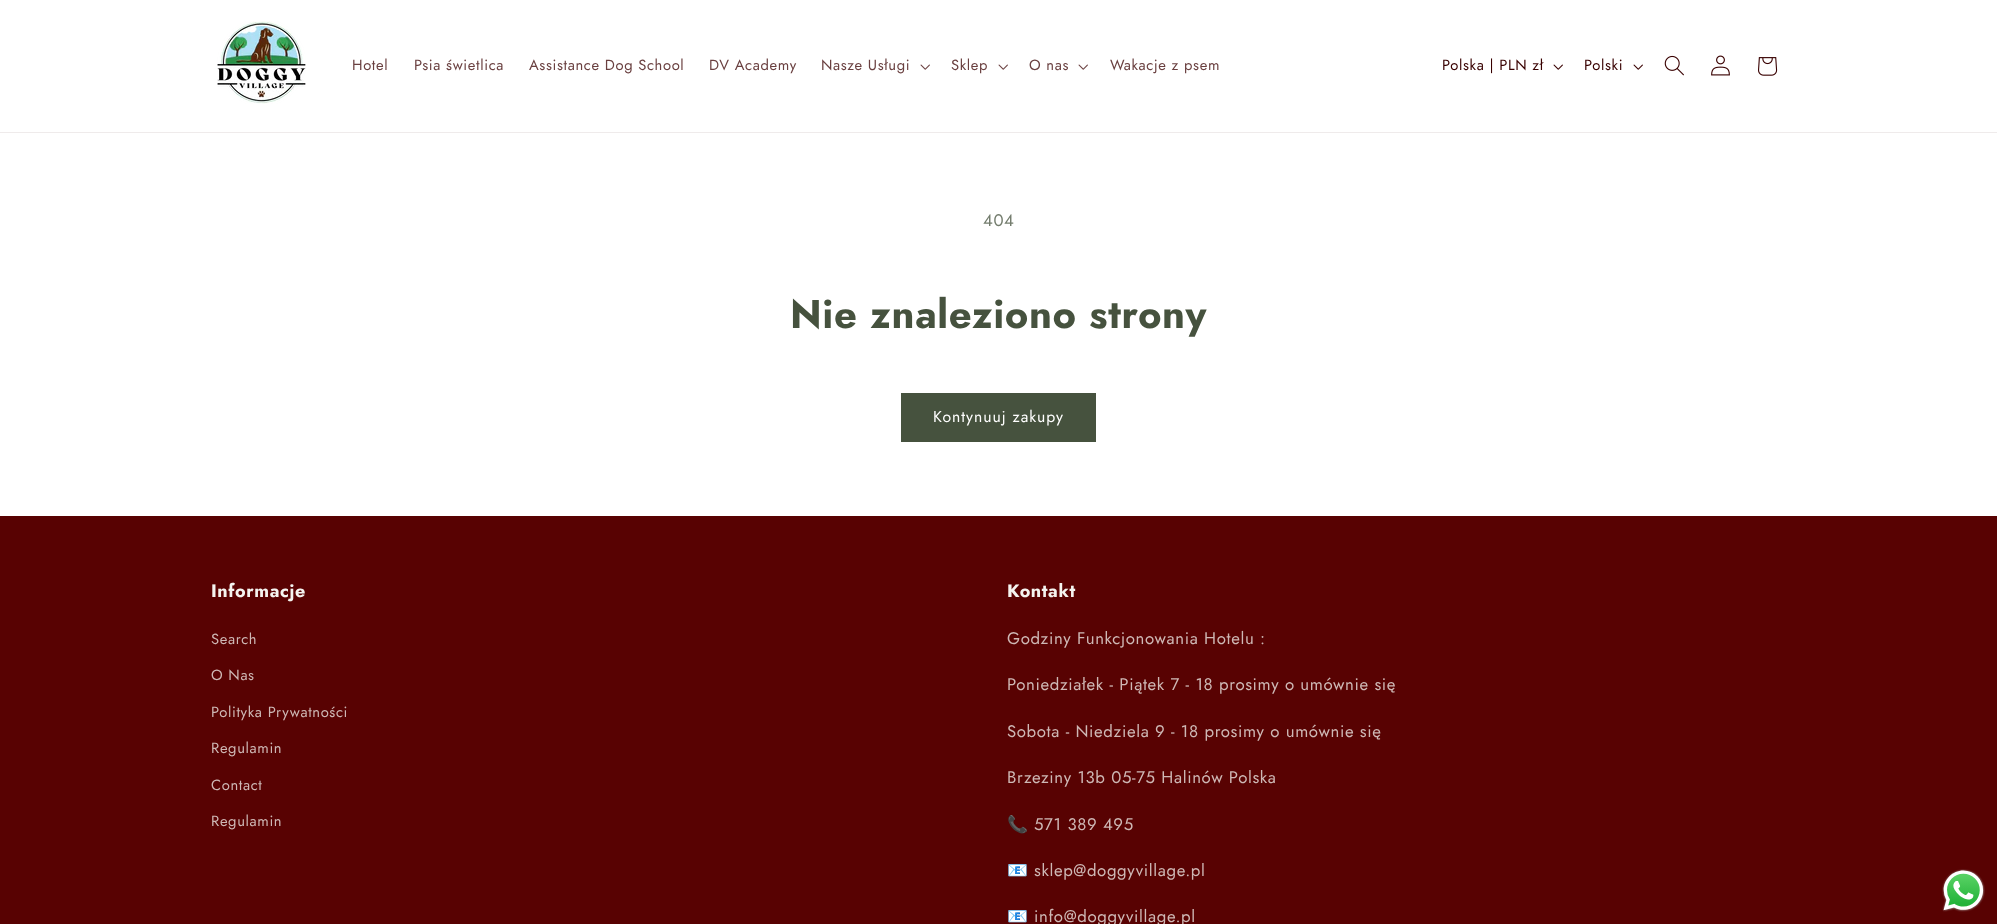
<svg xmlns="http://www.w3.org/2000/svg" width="1997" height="924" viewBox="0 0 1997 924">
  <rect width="100%" height="100%" fill="#ffffff"/>
  <rect x="0" y="132" width="1997" height="1" fill="#efebeb"/>
  <image x="217" y="21" width="89" height="83" href="img1.png"/>
  <text x="352" y="70" font-family="Jost" font-size="14.75" letter-spacing="0.63" fill="#6a4040">Hotel</text>
  <text x="414" y="70" font-family="Jost" font-size="14.75" letter-spacing="0.63" fill="#6a4040">Psia świetlica</text>
  <text x="529" y="70" font-family="Jost" font-size="14.75" letter-spacing="0.63" fill="#6a4040">Assistance Dog School</text>
  <text x="709" y="70" font-family="Jost" font-size="14.75" letter-spacing="0.63" fill="#6a4040">DV Academy</text>
  <text x="821" y="70" font-family="Jost" font-size="14.75" letter-spacing="0.63" fill="#6a4040">Nasze Usługi</text>
  <image x="920" y="64" width="10" height="6" href="img2.png"/>
  <text x="951" y="70" font-family="Jost" font-size="14.75" letter-spacing="0.63" fill="#6a4040">Sklep</text>
  <image x="998" y="64" width="10" height="6" href="img2.png"/>
  <text x="1029" y="70" font-family="Jost" font-size="14.75" letter-spacing="0.63" fill="#6a4040">O nas</text>
  <image x="1078" y="64" width="10" height="6" href="img2.png"/>
  <text x="1110" y="70" font-family="Jost" font-size="14.75" letter-spacing="0.63" fill="#6a4040">Wakacje z psem</text>
  <text x="1442" y="70" font-family="Jost" font-size="14.75" letter-spacing="0.63" fill="#380000">Polska | PLN zł</text>
  <image x="1553" y="64" width="10" height="6" href="img3.png"/>
  <text x="1584" y="70" font-family="Jost" font-size="14.75" letter-spacing="0.63" fill="#380000">Polski</text>
  <image x="1633" y="64" width="10" height="6" href="img3.png"/>
  <image x="1664" y="55" width="20" height="21" href="img4.png"/>
  <image x="1711" y="55" width="19" height="21" href="img5.png"/>
  <image x="1758" y="57" width="20" height="19" href="img6.png"/>
  <text x="983" y="226" font-family="Jost" font-size="16.8" letter-spacing="0.63" fill="#747d6e">404</text>
  <text x="790" y="328" font-family="Jost" font-size="40" font-weight="bold" letter-spacing="0.6" fill="#46523e">Nie znaleziono strony</text>
  <rect x="901" y="393" width="195" height="49" fill="#46523e"/>
  <text x="933" y="422" font-family="Jost" font-size="15.75" letter-spacing="1" fill="#ffffff">Kontynuuj zakupy</text>
  <rect x="0" y="516" width="1997" height="408" fill="#580202"/>
  <text x="211" y="597" font-family="Jost" font-size="18" font-weight="bold" letter-spacing="0.6" fill="#f5f4f0">Informacje</text>
  <text x="211" y="644" font-family="Jost" font-size="14.75" letter-spacing="0.63" fill="#ceb8b5">Search</text>
  <text x="211" y="680" font-family="Jost" font-size="14.75" letter-spacing="0.63" fill="#ceb8b5">O Nas</text>
  <text x="211" y="717" font-family="Jost" font-size="14.75" letter-spacing="0.63" fill="#ceb8b5">Polityka Prywatności</text>
  <text x="211" y="753" font-family="Jost" font-size="14.75" letter-spacing="0.63" fill="#ceb8b5">Regulamin</text>
  <text x="211" y="790" font-family="Jost" font-size="14.75" letter-spacing="0.63" fill="#ceb8b5">Contact</text>
  <text x="211" y="826" font-family="Jost" font-size="14.75" letter-spacing="0.63" fill="#ceb8b5">Regulamin</text>
  <text x="1007" y="597" font-family="Jost" font-size="18" font-weight="bold" letter-spacing="0.6" fill="#f5f4f0">Kontakt</text>
  <text x="1007" y="644" font-family="Jost" font-size="16.8" letter-spacing="0.63" fill="#ceb8b5">Godziny Funkcjonowania Hotelu :</text>
  <text x="1007" y="690" font-family="Jost" font-size="16.8" letter-spacing="0.63" fill="#ceb8b5">Poniedziałek - Piątek 7 - 18 prosimy o umównie się</text>
  <text x="1007" y="737" font-family="Jost" font-size="16.8" letter-spacing="0.63" fill="#ceb8b5">Sobota - Niedziela 9 - 18 prosimy o umównie się</text>
  <text x="1007" y="783" font-family="Jost" font-size="16.8" letter-spacing="0.63" fill="#ceb8b5">Brzeziny 13b 05-75 Halinów Polska</text>
  <text x="1007" y="830" font-family="Noto Color Emoji" font-size="16.8" letter-spacing="0.63" fill="#ceb8b5">📞</text>
  <text x="1034" y="830" font-family="Jost" font-size="16.8" letter-spacing="0.63" fill="#ceb8b5">571 389 495</text>
  <text x="1007" y="876" font-family="Noto Color Emoji" font-size="16.8" letter-spacing="0.63" fill="#ceb8b5">📧</text>
  <text x="1034" y="876" font-family="Jost" font-size="16.8" letter-spacing="0.63" fill="#ceb8b5">sklep@doggyvillage.pl</text>
  <text x="1007" y="922" font-family="Noto Color Emoji" font-size="16.8" letter-spacing="0.63" fill="#ceb8b5">📧</text>
  <text x="1034" y="922" font-family="Jost" font-size="16.8" letter-spacing="0.63" fill="#ceb8b5">info@doggyvillage.pl</text>
  <image x="1942" y="869" width="43" height="43" href="img7.png"/>
</svg>
